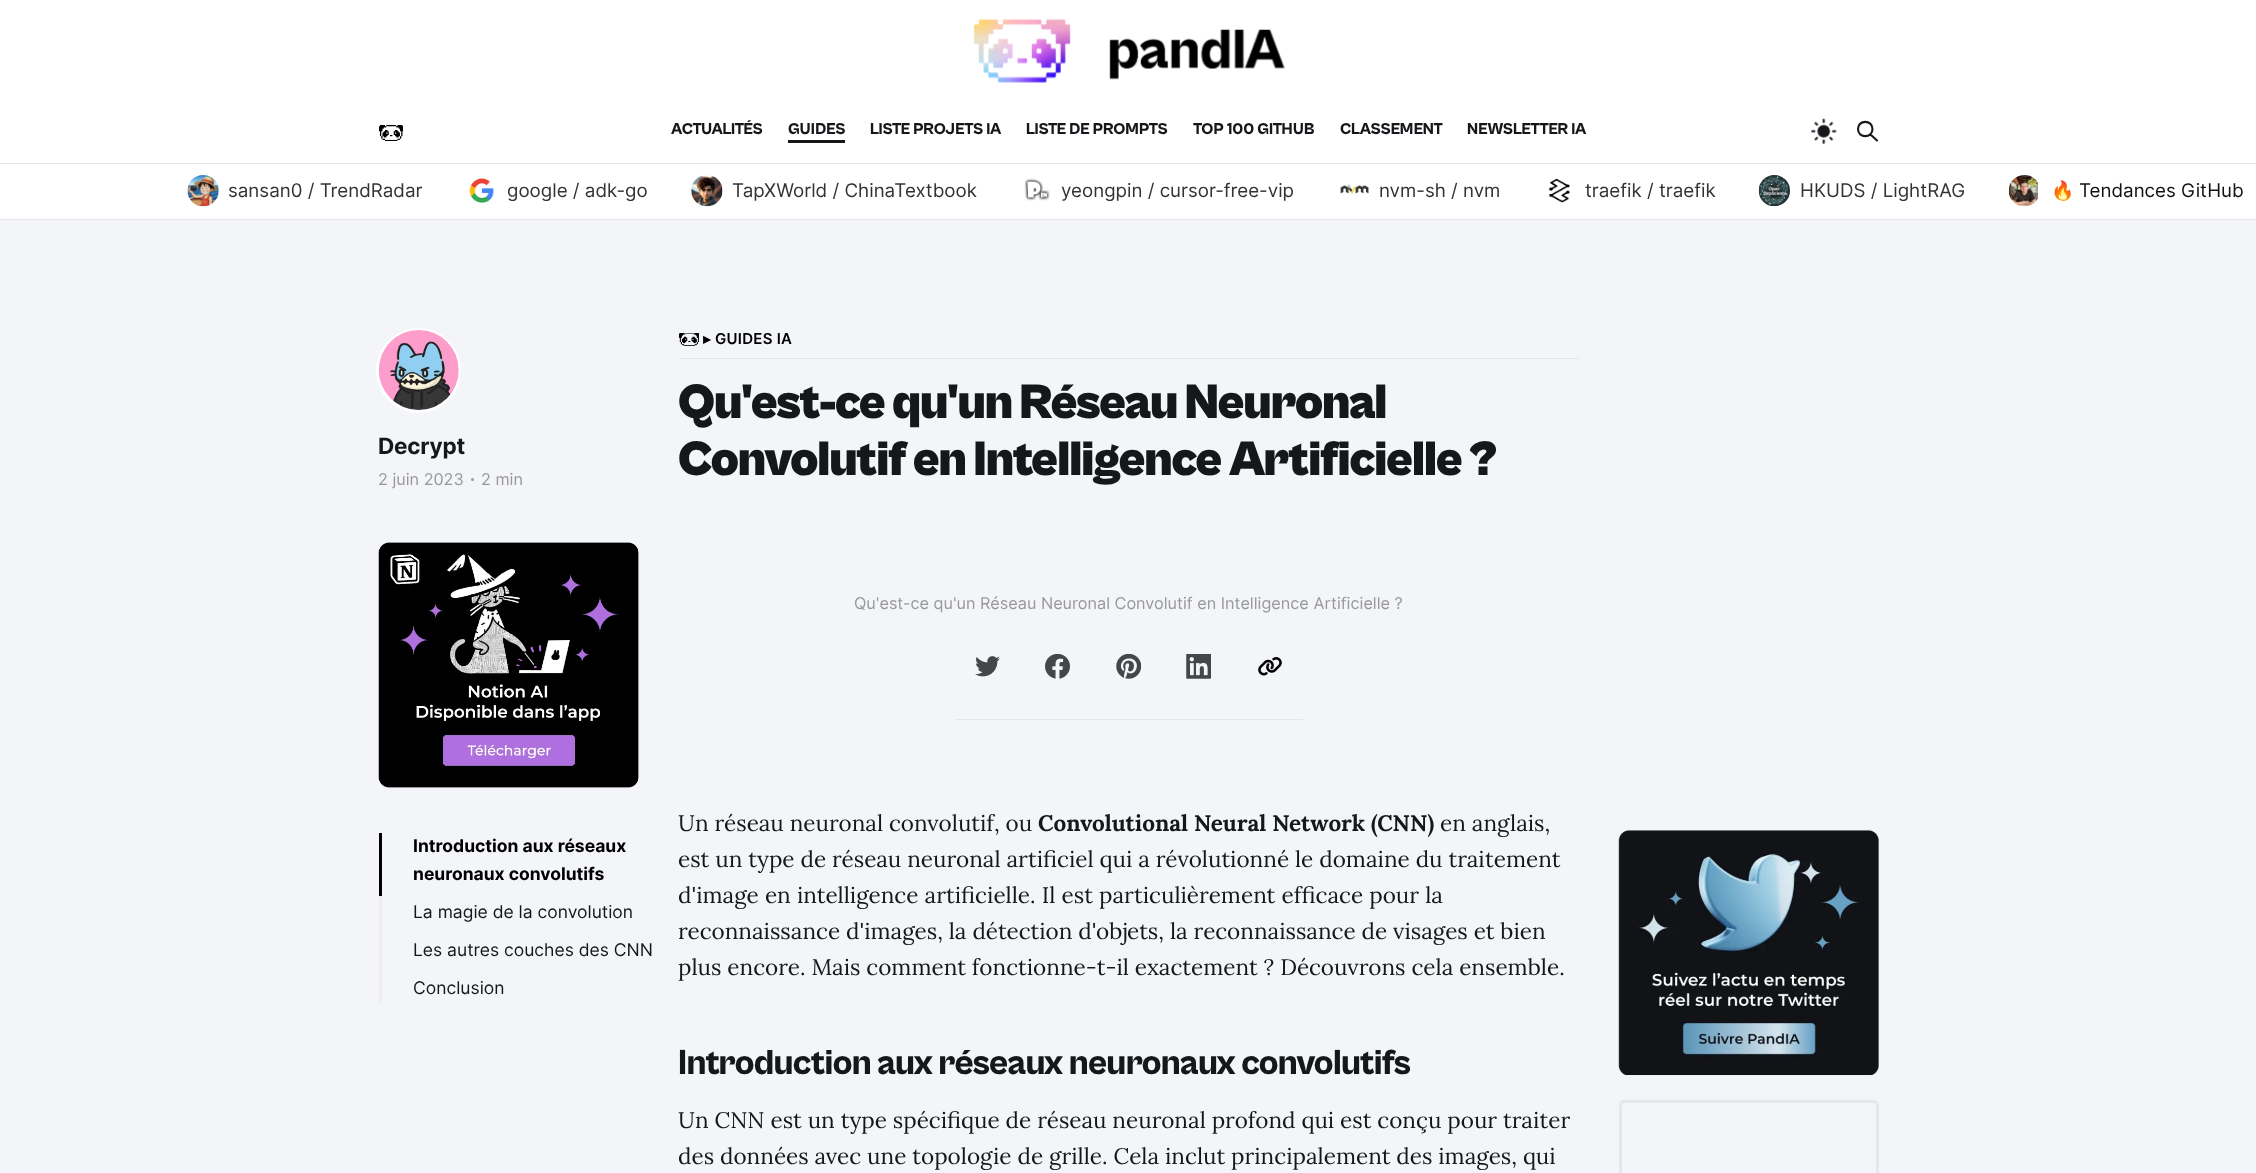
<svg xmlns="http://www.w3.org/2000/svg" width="2256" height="1173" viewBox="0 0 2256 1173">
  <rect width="100%" height="100%" fill="#f3f5f8"/>
  <rect x="0" y="0" width="2256" height="163" fill="#ffffff"/>
  <rect x="0" y="163" width="2256" height="1" fill="#e5e7eb"/>
  <image x="973" y="18" width="312" height="65" href="img1.png"/>
  <image x="379" y="125" width="24" height="16" href="img2.png"/>
  <text x="671" y="134" font-family="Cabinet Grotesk" font-size="16.25" font-weight="800" fill="#15171a">ACTUALITÉS</text>
  <text x="788" y="134" font-family="Cabinet Grotesk" font-size="16.25" font-weight="800" fill="#15171a">GUIDES</text>
  <rect x="788" y="140" width="57" height="3" fill="#15171a"/>
  <text x="870" y="134" font-family="Cabinet Grotesk" font-size="16.25" font-weight="800" fill="#15171a">LISTE PROJETS IA</text>
  <text x="1026" y="134" font-family="Cabinet Grotesk" font-size="16.25" font-weight="800" fill="#15171a">LISTE DE PROMPTS</text>
  <text x="1193" y="134" font-family="Cabinet Grotesk" font-size="16.25" font-weight="800" fill="#15171a">TOP 100 GITHUB</text>
  <text x="1340" y="134" font-family="Cabinet Grotesk" font-size="16.25" font-weight="800" fill="#15171a">CLASSEMENT</text>
  <text x="1467" y="134" font-family="Cabinet Grotesk" font-size="16.25" font-weight="800" fill="#15171a">NEWSLETTER IA</text>
  <image x="1811" y="118" width="26" height="26" href="img3.png"/>
  <path d="M1877 140.5L1870.5 134.5M1872.5 129C1872.5 138.5 1858 138.5 1858 129C1858 119.5 1872.5 119.5 1872.5 129Z" fill="none" stroke="#15171a" stroke-width="2.1" stroke-linecap="round" stroke-linejoin="round"/>
  <rect x="0" y="164" width="2256" height="55" fill="#ffffff"/>
  <rect x="0" y="219" width="2256" height="1" fill="#e5e7eb"/>
  <image x="187" y="175" width="32" height="32" href="img4.png"/>
  <text x="228" y="197" font-family="Inter" font-size="18.75" fill="#333333">sansan0 / TrendRadar</text>
  <image x="469" y="178" width="25" height="25" href="img5.png"/>
  <text x="507" y="197" font-family="Inter" font-size="18.75" fill="#333333">google / adk-go</text>
  <image x="691" y="175" width="32" height="32" href="img6.png"/>
  <text x="732" y="197" font-family="Inter" font-size="18.75" fill="#333333">TapXWorld / ChinaTextbook</text>
  <image x="1024" y="178" width="26" height="23" href="img7.png"/>
  <text x="1061" y="197" font-family="Inter" font-size="18.75" fill="#333333">yeongpin / cursor-free-vip</text>
  <image x="1340" y="184" width="29" height="10" href="img8.png"/>
  <text x="1379" y="197" font-family="Inter" font-size="18.75" fill="#333333">nvm-sh / nvm</text>
  <image x="1548" y="178" width="22" height="25" href="img9.png"/>
  <text x="1585" y="197" font-family="Inter" font-size="18.75" fill="#333333">traefik / traefik</text>
  <image x="1758" y="175" width="32" height="32" href="img10.png"/>
  <text x="1800" y="197" font-family="Inter" font-size="18.75" fill="#333333">HKUDS / LightRAG</text>
  <image x="2008" y="175" width="30" height="31" href="img11.png"/>
  <text x="2051" y="197" font-family="Noto Color Emoji" font-size="18.75" fill="#111111">🔥</text>
  <text x="2079" y="197" font-family="Inter" font-size="18.75" fill="#111111">Tendances GitHub</text>
  <rect x="679" y="358" width="900" height="1" fill="#e6e6e6"/>
  <image x="679" y="333" width="20" height="13" href="img12.png"/>
  <text x="703" y="344" font-family="DejaVu Sans" font-size="15" font-weight="bold" letter-spacing="0.25" fill="#000000">▸</text>
  <text x="715" y="344" font-family="Inter" font-size="15" font-weight="600" letter-spacing="0.25" fill="#000000">GUIDES IA</text>
  <circle cx="418.5" cy="370.5" r="41" fill="none" stroke="#ffffff" stroke-width="3"/>
  <image x="378" y="330" width="81" height="80" href="img13.png"/>
  <text x="378" y="454" font-family="Inter" font-size="22.5" font-weight="bold" letter-spacing="-0.25" fill="#15171a">Decrypt</text>
  <text x="378" y="485" font-family="Inter" font-size="16.25" fill="#999999">2 juin 2023</text>
  <circle cx="472.5" cy="479.5" r="1.5" fill="#999999"/>
  <text x="481" y="485" font-family="Inter" font-size="16.25" fill="#999999">2 min</text>
  <image x="378" y="542" width="261" height="246" href="img14.png"/>
  <text x="678" y="418" font-family="Cabinet Grotesk" font-size="50" font-weight="900" letter-spacing="-1" fill="#15171a">Qu'est-ce qu'un Réseau Neuronal</text>
  <text x="678" y="475" font-family="Cabinet Grotesk" font-size="50" font-weight="900" letter-spacing="-1" fill="#15171a">Convolutif en Intelligence Artificielle ?</text>
  <text x="854" y="609" font-family="Inter" font-size="16.25" fill="#999999">Qu'est-ce qu'un Réseau Neuronal Convolutif en Intelligence Artificielle ?</text>
  <rect x="955" y="719" width="348" height="1" fill="#e6e6e6"/>
  <image x="975" y="656" width="25" height="21" href="img15.png"/>
  <image x="1045" y="654" width="25" height="25" href="img16.png"/>
  <image x="1116" y="654" width="25" height="25" href="img17.png"/>
  <image x="1186" y="654" width="25" height="25" href="img18.png"/>
  <image x="1258" y="657" width="24" height="19" href="img19.png"/>
  <rect x="379" y="833" width="3" height="63" fill="#000000"/>
  <text x="413" y="852" font-family="Inter" font-size="17.5" font-weight="bold" fill="#000000">Introduction aux réseaux</text>
  <text x="413" y="880" font-family="Inter" font-size="17.5" font-weight="bold" fill="#000000">neuronaux convolutifs</text>
  <rect x="379" y="896" width="3" height="107" fill="#eeeeee"/>
  <text x="413" y="918" font-family="Inter" font-size="17.5" fill="#15171a">La magie de la convolution</text>
  <text x="413" y="956" font-family="Inter" font-size="17.5" fill="#15171a">Les autres couches des CNN</text>
  <text x="413" y="994" font-family="Inter" font-size="17.5" fill="#15171a">Conclusion</text>
  <text x="678" y="831" font-family="Lora" font-size="22.5" fill="#15171a">Un réseau neuronal convolutif, ou</text>
  <text x="1038" y="831" font-family="Lora" font-size="22.5" font-weight="bold" fill="#15171a">Convolutional Neural Network (CNN)</text>
  <text x="1440" y="831" font-family="Lora" font-size="22.5" fill="#15171a">en anglais,</text>
  <text x="678" y="867" font-family="Lora" font-size="22.5" fill="#15171a">est un type de réseau neuronal artificiel qui a révolutionné le domaine du traitement</text>
  <text x="678" y="903" word-spacing="0.25" font-family="Lora" font-size="22.5" fill="#15171a">d'image en intelligence artificielle. Il est particulièrement efficace pour la</text>
  <text x="678" y="939" font-family="Lora" font-size="22.5" fill="#15171a">reconnaissance d'images, la détection d'objets, la reconnaissance de visages et bien</text>
  <text x="678" y="975" font-family="Lora" font-size="22.5" fill="#15171a">plus encore. Mais comment fonctionne-t-il exactement ? Découvrons cela ensemble.</text>
  <image x="1618" y="830" width="261" height="246" href="img20.png"/>
  <rect x="1620.5" y="1101.5" width="257" height="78" rx="3.5" fill="none" stroke="#e5e7eb" stroke-width="3"/>
  <text x="678" y="1074" font-family="Cabinet Grotesk" font-size="36" font-weight="800" letter-spacing="-0.7" fill="#15171a">Introduction aux réseaux neuronaux convolutifs</text>
  <text x="678" y="1128" font-family="Lora" font-size="22.5" fill="#15171a">Un CNN est un type spécifique de réseau neuronal profond qui est conçu pour traiter</text>
  <text x="678" y="1164" font-family="Lora" font-size="22.5" fill="#15171a">des données avec une topologie de grille. Cela inclut principalement des images, qui</text>
</svg>
